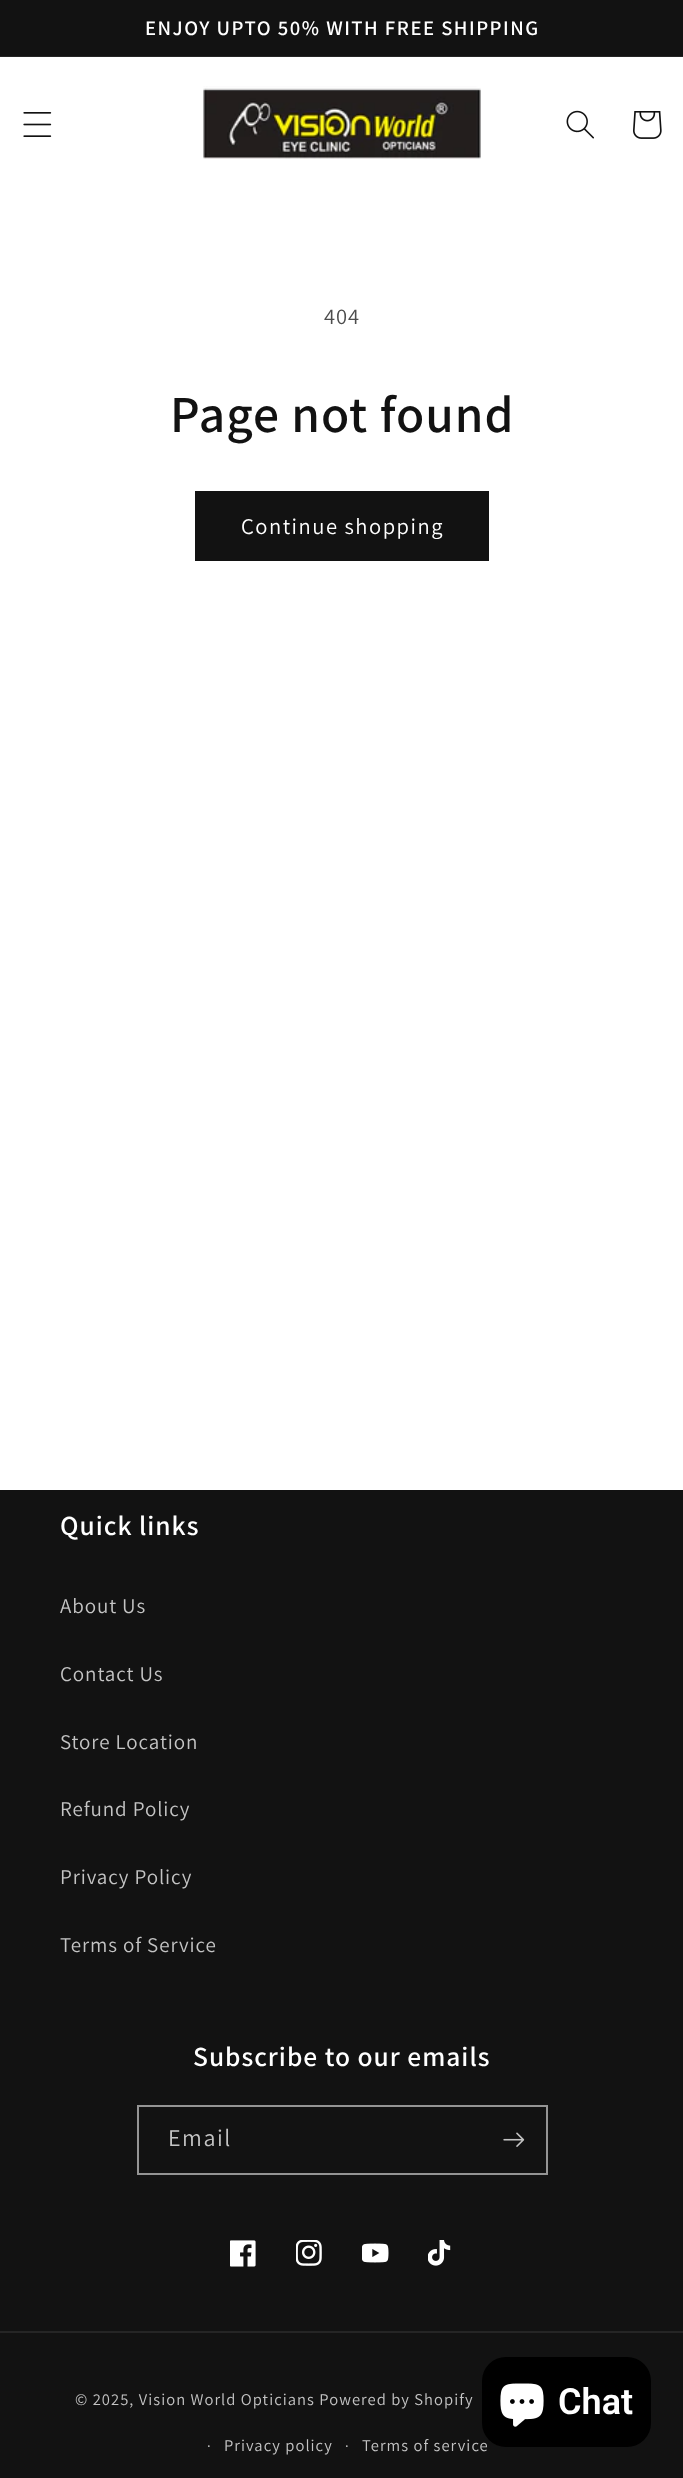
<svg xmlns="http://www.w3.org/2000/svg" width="683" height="2478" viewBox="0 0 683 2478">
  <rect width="100%" height="100%" fill="#ffffff"/>
  <rect x="0" y="0" width="683" height="56" fill="#121212"/>
  <rect x="0" y="56" width="683" height="1" fill="#252525"/>
  <text x="145" y="35" font-family="Assistant" font-size="20.75" font-weight="600" letter-spacing="1.5" fill="#ffffff">ENJOY UPTO 50% WITH FREE SHIPPING</text>
  <image x="23" y="112" width="29" height="25" href="img1.png"/>
  <image x="203" y="86" width="278" height="73" href="img2.png"/>
  <image x="566" y="110" width="28" height="29" href="img3.png"/>
  <image x="633" y="111" width="29" height="28" href="img4.png"/>
  <text x="324" y="324" font-family="Assistant" font-size="22.5" letter-spacing="0.9" fill="#4d4d4d">404</text>
  <text x="170" y="432" font-family="Assistant" font-size="51.75" font-weight="600" letter-spacing="1" fill="#121212">Page not found</text>
  <rect x="195" y="491" width="294" height="70" fill="#121212"/>
  <text x="241" y="534" font-family="Assistant" font-size="22.5" letter-spacing="1.5" fill="#ffffff">Continue shopping</text>
  <rect x="0" y="1490" width="683" height="988" fill="#121212"/>
  <text x="60" y="1535" font-family="Assistant" font-size="27.6" font-weight="600" letter-spacing="1" fill="#ffffff">Quick links</text>
  <text x="60" y="1613" font-family="Assistant" font-size="21" letter-spacing="0.9" fill="#c4c4c4">About Us</text>
  <text x="60" y="1681" font-family="Assistant" font-size="21" letter-spacing="0.9" fill="#c4c4c4">Contact Us</text>
  <text x="60" y="1749" font-family="Assistant" font-size="21" letter-spacing="0.9" fill="#c4c4c4">Store Location</text>
  <text x="60" y="1816" font-family="Assistant" font-size="21" letter-spacing="0.9" fill="#c4c4c4">Refund Policy</text>
  <text x="60" y="1884" font-family="Assistant" font-size="21" letter-spacing="0.9" fill="#c4c4c4">Privacy Policy</text>
  <text x="60" y="1952" font-family="Assistant" font-size="21" letter-spacing="0.9" fill="#c4c4c4">Terms of Service</text>
  <text x="193" y="2066" font-family="Assistant" font-size="27.6" font-weight="600" letter-spacing="1" fill="#ffffff">Subscribe to our emails</text>
  <rect x="138" y="2106" width="409" height="68" fill="none" stroke="#949494" stroke-width="2"/>
  <text x="168" y="2146" font-family="Assistant" font-size="24" letter-spacing="1.5" fill="#c4c4c4">Email</text>
  <image x="503" y="2132" width="22" height="15" href="img5.png"/>
  <image x="230" y="2240" width="26" height="27" href="img6.png"/>
  <image x="296" y="2240" width="26" height="26" href="img7.png"/>
  <image x="362" y="2243" width="27" height="20" href="img8.png"/>
  <image x="428" y="2240" width="23" height="26" href="img9.png"/>
  <rect x="0" y="2331" width="683" height="2" fill="#252525"/>
  <text x="75" y="2405" font-family="Assistant" font-size="16.5" letter-spacing="1.05" fill="#c4c4c4">© 2025, Vision World Opticians Powered by Shopify</text>
  <text x="207" y="2451" font-family="Assistant" font-size="15" letter-spacing="1.05" fill="#c4c4c4">·</text>
  <text x="224" y="2451" font-family="Assistant" font-size="16.5" letter-spacing="1.05" fill="#c4c4c4">Privacy policy</text>
  <text x="345" y="2451" font-family="Assistant" font-size="15" letter-spacing="1.05" fill="#c4c4c4">·</text>
  <text x="362" y="2451" font-family="Assistant" font-size="16.5" letter-spacing="1.05" fill="#c4c4c4">Terms of service</text>
  <rect x="482" y="2357" width="169" height="90" rx="24" fill="#000000"/>
  <image x="500" y="2383" width="44" height="44" href="img10.png"/>
  <text x="558" y="2414" font-family="Roboto" font-size="36" font-weight="600" fill="#ffffff">Chat</text>
</svg>
